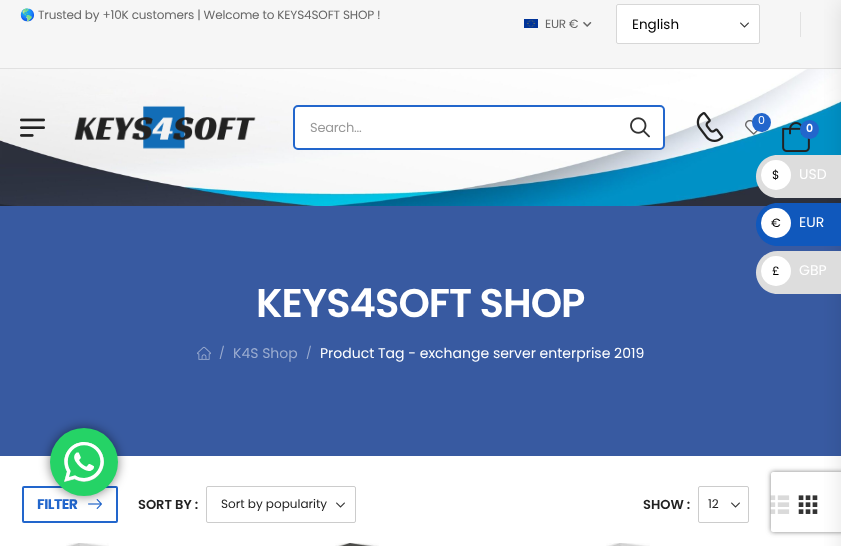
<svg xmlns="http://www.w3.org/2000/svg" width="841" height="546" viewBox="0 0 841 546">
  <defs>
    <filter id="blur1" x="-50%" y="-200%" width="200%" height="500%"><feGaussianBlur stdDeviation="11"/></filter>
    <filter id="blur2" x="-50%" y="-200%" width="200%" height="500%"><feGaussianBlur stdDeviation="5.5"/></filter>
    <clipPath id="clip1"><path d="M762 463H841V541H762ZM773 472H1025C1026 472 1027 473 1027 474V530C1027 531 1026 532 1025 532H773C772 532 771 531 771 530V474C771 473 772 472 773 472Z" clip-rule="evenodd"/></clipPath>
    <filter id="blur3" x="-50%" y="-200%" width="200%" height="500%"><feGaussianBlur stdDeviation="2.5"/></filter>
  </defs>
  <rect width="100%" height="100%" fill="#ffffff"/>
  <rect x="0" y="0" width="841" height="68" fill="#f6f6f6"/>
  <rect x="0" y="68" width="841" height="1" fill="#e1e1e1"/>
  <text x="20" y="19" font-family="Noto Color Emoji" font-size="12" letter-spacing="-0.15" fill="#666666">🌎</text>
  <text x="38" y="19" font-family="Poppins" font-size="12" letter-spacing="-0.15" fill="#666666">Trusted by +10K customers | Welcome to KEYS4SOFT SHOP !</text>
  <image x="524" y="19" width="14" height="9" href="img1.png"/>
  <text x="545" y="28" font-family="Poppins" font-size="12" letter-spacing="-0.25" fill="#666666">EUR €</text>
  <image x="583" y="22" width="9" height="5" href="img2.png"/>
  <rect x="616" y="4" width="144" height="40" rx="2" fill="#ffffff"/>
  <image x="740" y="22" width="9" height="6" href="img3.png"/>
  <rect x="616.5" y="4.5" width="143" height="39" rx="1.5" fill="none" stroke="#d7d7d7"/>
  <text x="632" y="29" font-family="Poppins" font-size="13.5" fill="#000000">English</text>
  <rect x="800" y="12" width="1" height="25" fill="#e1e1e1"/>
  <image x="0" y="69" width="841" height="137" href="img4.png"/>
  <image x="20" y="118" width="25" height="19" href="img5.png"/>
  <image x="74" y="105" width="182" height="44" href="img6.png"/>
  <rect x="294" y="106" width="370" height="43" rx="4" fill="#ffffff" stroke="#2266cc" stroke-width="2"/>
  <text x="310" y="132" font-family="Poppins" font-size="13" letter-spacing="-0.25" fill="#999999">Search...</text>
  <image x="630" y="117" width="20" height="21" href="img7.png"/>
  <image x="696" y="112" width="28" height="30" href="img8.png"/>
  <image x="745" y="120" width="13" height="15" href="img9.png"/>
  <circle cx="761.5" cy="122.5" r="9.5" fill="#2266cc"/>
  <text x="758" y="124" font-family="Poppins" font-size="11" letter-spacing="-0.25" fill="#ffffff">0</text>
  <image x="782" y="122" width="28" height="30" href="img10.png"/>
  <circle cx="809.5" cy="129.5" r="9.5" fill="#2266cc"/>
  <rect x="0" y="206" width="841" height="250" fill="#385aa1"/>
  <image x="798" y="495" width="20" height="19" href="img14.png"/>
  <rect x="841" y="2" width="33" height="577" fill="#000000" fill-opacity="0.1" filter="url(#blur1)"/>
  <text x="806" y="132" font-family="Poppins" font-size="11" font-weight="600" letter-spacing="-0.25" fill="#ffffff">0</text>
  <text x="256" y="317" font-family="Poppins" font-size="40" font-weight="600" letter-spacing="-1" fill="#ffffff">KEYS4SOFT SHOP</text>
  <image x="197" y="346" width="14" height="14" href="img11.png"/>
  <text x="219" y="357" font-family="Poppins" font-size="12" fill="#9cadd0">/</text>
  <text x="233" y="358" font-family="Poppins" font-size="14" fill="#9cadd0">K4S Shop</text>
  <text x="306" y="357" font-family="Poppins" font-size="12" fill="#9cadd0">/</text>
  <text x="320" y="358" font-family="Poppins" font-size="14" fill="#ffffff">Product Tag - exchange server enterprise 2019</text>
  <rect x="23" y="487" width="94" height="35" rx="1" fill="none" stroke="#2266cc" stroke-width="2"/>
  <text x="37" y="509" font-family="Poppins" font-size="14" font-weight="bold" letter-spacing="-0.5" fill="#2266cc">FILTER</text>
  <image x="88" y="499" width="14" height="10" href="img12.png"/>
  <text x="138" y="509" font-family="Poppins" font-size="13" font-weight="600" fill="#222222">SORT BY :</text>
  <image x="336" y="502" width="9" height="6" href="img3.png"/>
  <rect x="206.5" y="486.5" width="149" height="36" rx="1.5" fill="none" stroke="#cccccc"/>
  <text x="221" y="508" font-family="Poppins" font-size="12" fill="#222222">Sort by popularity</text>
  <text x="643" y="509" font-family="Poppins" font-size="13" font-weight="600" fill="#222222">SHOW :</text>
  <image x="731" y="502" width="9" height="6" href="img3.png"/>
  <rect x="698.5" y="486.5" width="50" height="36" rx="1.5" fill="none" stroke="#cccccc"/>
  <text x="708" y="508" font-family="Poppins" font-size="12" fill="#222222">12</text>
  <image x="770" y="495" width="20" height="19" href="img13.png"/>
  <image x="66" y="543" width="43" height="3" href="img15.png"/>
  <image x="335" y="543" width="44" height="3" href="img16.png"/>
  <image x="606" y="543" width="44" height="3" href="img17.png"/>
  <path d="M777.5 155H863V198H777.5C765.5 198 756 188.5 756 176.5C756 164.5 765.5 155 777.5 155Z" fill="#dddddd"/>
  <circle cx="776" cy="175" r="15" fill="#ffffff"/>
  <text x="772" y="179" font-family="Poppins" font-size="12" fill="#000000">$</text>
  <text x="799" y="179" font-family="Poppins" font-size="14" fill="#ffffff">USD</text>
  <path d="M777.5 203H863V246H777.5C765.5 246 756 236.5 756 224.5C756 212.5 765.5 203 777.5 203Z" fill="#1058bc"/>
  <circle cx="776" cy="223" r="15" fill="#ffffff"/>
  <text x="771" y="227" font-family="Poppins" font-size="12" fill="#000000">€</text>
  <text x="799" y="227" font-family="Poppins" font-size="14" fill="#ffffff">EUR</text>
  <path d="M777.5 251H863V294H777.5C765.5 294 756 284.5 756 272.5C756 260.5 765.5 251 777.5 251Z" fill="#dddddd"/>
  <circle cx="776" cy="271" r="15" fill="#ffffff"/>
  <text x="772" y="275" font-family="Poppins" font-size="12" fill="#000000">£</text>
  <text x="799" y="275" font-family="Poppins" font-size="14" fill="#ffffff">GBP</text>
  <rect x="50" y="428" width="68" height="68" rx="34" fill="#000000" fill-opacity="0.5" filter="url(#blur2)"/>
  <circle cx="84" cy="462" r="34" fill="#25d366"/>
  <image x="64" y="442" width="40" height="40" href="img18.png"/>
  <g clip-path="url(#clip1)">
    <rect x="771" y="472" width="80" height="60" rx="2" fill="#808080" filter="url(#blur3)"/>
  </g>
</svg>
